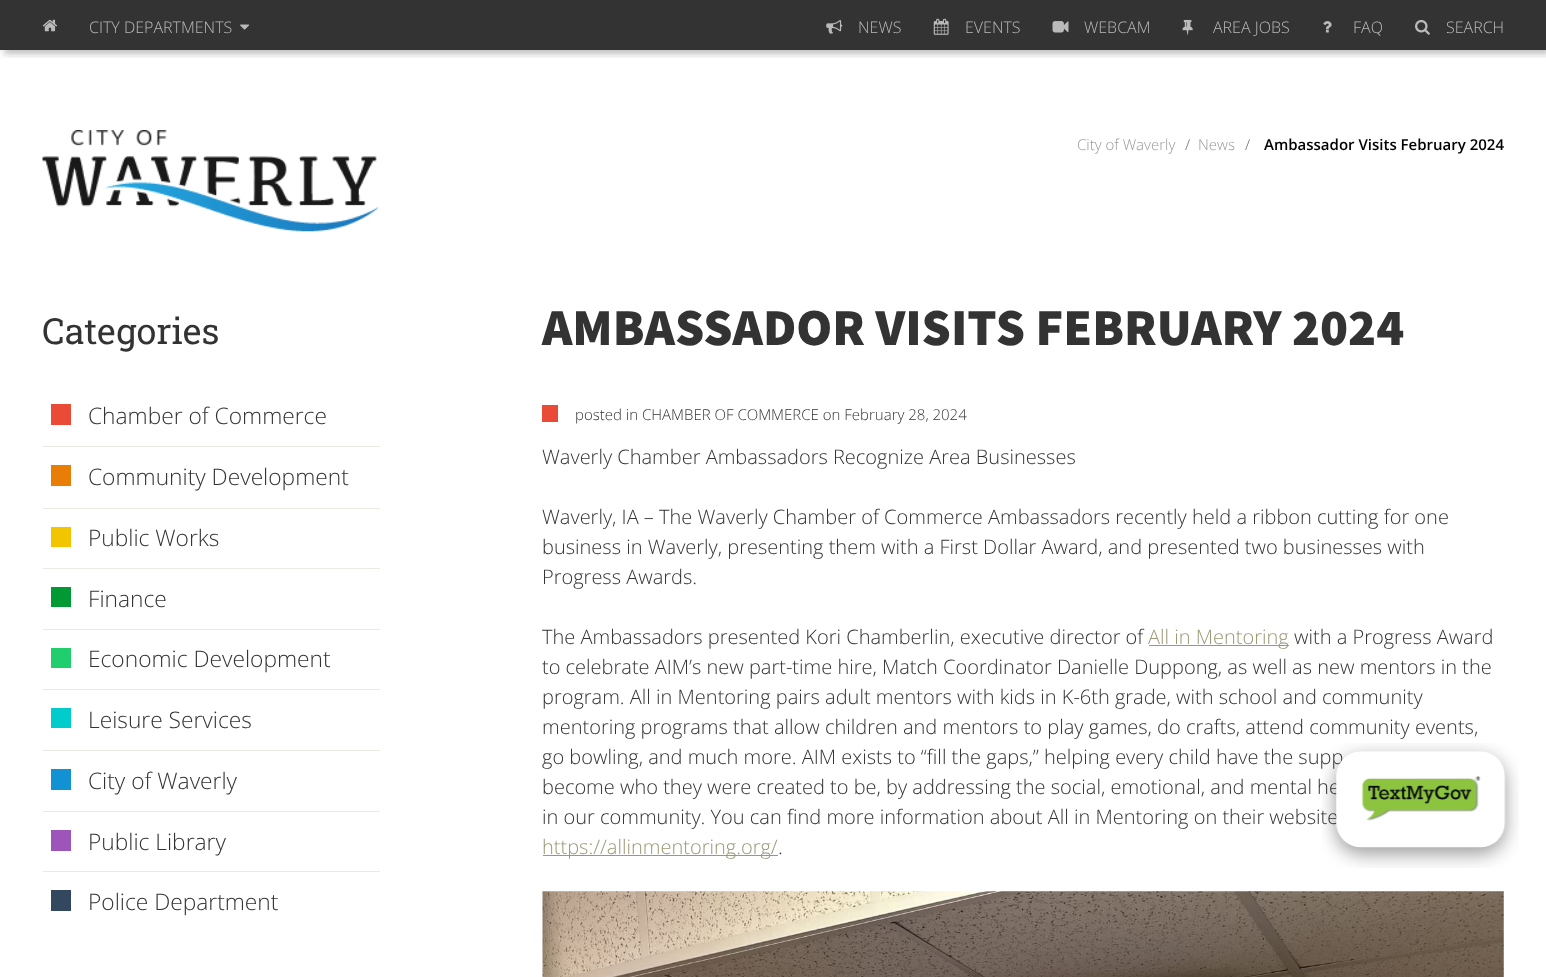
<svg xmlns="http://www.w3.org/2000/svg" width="1546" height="977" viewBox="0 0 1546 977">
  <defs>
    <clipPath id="clip1"><rect x="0" y="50" width="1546" height="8"/></clipPath>
    <filter id="blur1" x="-50%" y="-200%" width="200%" height="500%"><feGaussianBlur stdDeviation="3"/></filter>
  </defs>
  <rect width="100%" height="100%" fill="#333333"/>
  <rect x="0" y="50" width="1546" height="927" fill="#ffffff"/>
  <g clip-path="url(#clip1)">
    <rect x="4" y="4" width="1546" height="50" fill="#323232" fill-opacity="0.3" filter="url(#blur1)"/>
  </g>
  <image x="42" y="19" width="16" height="13" href="img1.png"/>
  <text x="89" y="33" font-family="Open Sans" font-size="16" font-weight="300" fill="#bababa">CITY DEPARTMENTS</text>
  <image x="240" y="24" width="10" height="6" href="img2.png"/>
  <image x="826" y="20" width="17" height="14" href="img3.png"/>
  <text x="858" y="33" font-family="Open Sans" font-size="16" font-weight="300" fill="#bababa">NEWS</text>
  <image x="933" y="18" width="16" height="17" href="img4.png"/>
  <text x="965" y="33" font-family="Open Sans" font-size="16" font-weight="300" fill="#bababa">EVENTS</text>
  <image x="1052" y="21" width="17" height="12" href="img5.png"/>
  <text x="1084" y="33" font-family="Open Sans" font-size="16" font-weight="300" fill="#bababa">WEBCAM</text>
  <image x="1182" y="19" width="11" height="16" href="img6.png"/>
  <text x="1213" y="33" font-family="Open Sans" font-size="16" font-weight="300" fill="#bababa">AREA JOBS</text>
  <image x="1323" y="21" width="9" height="12" href="img7.png"/>
  <text x="1353" y="33" font-family="Open Sans" font-size="16" font-weight="300" fill="#bababa">FAQ</text>
  <image x="1415" y="19" width="15" height="16" href="img8.png"/>
  <text x="1446" y="33" font-family="Open Sans" font-size="16" font-weight="300" fill="#bababa">SEARCH</text>
  <image x="42" y="130" width="337" height="102" href="img9.png"/>
  <text x="1077" y="150" font-family="Open Sans" font-size="15" font-weight="300" fill="#999999">City of Waverly</text>
  <text x="1185" y="150" font-family="Open Sans" font-size="15" font-weight="300" fill="#666666">/</text>
  <text x="1198" y="150" font-family="Open Sans" font-size="15" font-weight="300" fill="#999999">News</text>
  <text x="1245" y="150" font-family="Open Sans" font-size="15" font-weight="300" fill="#666666">/</text>
  <text x="1264" y="150" font-family="Open Sans" font-size="15" font-weight="600" fill="#000000">Ambassador Visits February 2024</text>
  <text x="42" y="344" font-family="Roboto Slab" font-size="36" fill="#333333">Categories</text>
  <rect x="51" y="404" width="20" height="21" fill="#ea4b36"/>
  <text x="88" y="424" font-family="Open Sans" font-size="22.75" font-weight="300" fill="#333333">Chamber of Commerce</text>
  <rect x="43" y="446" width="337" height="1" fill="#eae9e2"/>
  <rect x="51" y="465" width="20" height="21" fill="#e97e06"/>
  <text x="88" y="485" font-family="Open Sans" font-size="22.75" font-weight="300" fill="#333333">Community Development</text>
  <rect x="43" y="508" width="337" height="1" fill="#eae9e2"/>
  <rect x="51" y="527" width="20" height="20" fill="#f2c500"/>
  <text x="88" y="546" font-family="Open Sans" font-size="22.75" font-weight="300" fill="#333333">Public Works</text>
  <rect x="43" y="568" width="337" height="1" fill="#eae9e2"/>
  <rect x="51" y="587" width="20" height="20" fill="#009933"/>
  <text x="88" y="607" font-family="Open Sans" font-size="22.75" font-weight="300" fill="#333333">Finance</text>
  <rect x="43" y="629" width="337" height="1" fill="#eae9e2"/>
  <rect x="51" y="648" width="20" height="20" fill="#20ce6d"/>
  <text x="88" y="667" font-family="Open Sans" font-size="22.75" font-weight="300" fill="#333333">Economic Development</text>
  <rect x="43" y="689" width="337" height="1" fill="#eae9e2"/>
  <rect x="51" y="708" width="20" height="20" fill="#00cccc"/>
  <text x="88" y="728" font-family="Open Sans" font-size="22.75" font-weight="300" fill="#333333">Leisure Services</text>
  <rect x="43" y="750" width="337" height="1" fill="#eae9e2"/>
  <rect x="51" y="769" width="20" height="21" fill="#1292d2"/>
  <text x="88" y="789" font-family="Open Sans" font-size="22.75" font-weight="300" fill="#333333">City of Waverly</text>
  <rect x="43" y="811" width="337" height="1" fill="#eae9e2"/>
  <rect x="51" y="830" width="20" height="21" fill="#9d55ba"/>
  <text x="88" y="850" font-family="Open Sans" font-size="22.75" font-weight="300" fill="#333333">Public Library</text>
  <rect x="43" y="871" width="337" height="1" fill="#eae9e2"/>
  <rect x="51" y="890" width="20" height="21" fill="#33485f"/>
  <text x="88" y="910" font-family="Open Sans" font-size="22.75" font-weight="300" fill="#333333">Police Department</text>
  <text x="542" y="345" font-family="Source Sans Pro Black" font-size="52" font-weight="900" fill="#333333">AMBASSADOR VISITS FEBRUARY 2024</text>
  <rect x="542" y="405" width="16" height="17" fill="#ea4b36"/>
  <text x="575" y="420" font-family="Open Sans" font-size="15" font-weight="300" fill="#333333">posted in CHAMBER OF COMMERCE on February 28, 2024</text>
  <text x="542" y="464" font-family="Open Sans" font-size="20" font-weight="300" fill="#333333">Waverly Chamber Ambassadors Recognize Area Businesses</text>
  <text x="542" y="524" font-family="Open Sans" font-size="20" font-weight="300" fill="#333333">Waverly, IA – The Waverly Chamber of Commerce Ambassadors recently held a ribbon cutting for one</text>
  <text x="542" y="554" font-family="Open Sans" font-size="20" font-weight="300" fill="#333333">business in Waverly, presenting them with a First Dollar Award, and presented two businesses with</text>
  <text x="542" y="584" font-family="Open Sans" font-size="20" font-weight="300" fill="#333333">Progress Awards.</text>
  <text x="542" y="644" font-family="Open Sans" font-size="20" font-weight="300" fill="#333333">The Ambassadors presented Kori Chamberlin, executive director of</text>
  <rect x="1149" y="645" width="140" height="1" fill="#9c9876"/>
  <text x="1148" y="644" font-family="Open Sans" font-size="20" font-weight="300" fill="#9c9876">All in Mentoring</text>
  <text x="1294" y="644" font-family="Open Sans" font-size="20" font-weight="300" fill="#333333">with a Progress Award</text>
  <text x="542" y="674" font-family="Open Sans" font-size="20" font-weight="300" fill="#333333">to celebrate AIM’s new part-time hire, Match Coordinator Danielle Duppong, as well as new mentors in the</text>
  <text x="542" y="704" font-family="Open Sans" font-size="20" font-weight="300" fill="#333333">program. All in Mentoring pairs adult mentors with kids in K-6th grade, with school and community</text>
  <text x="542" y="734" font-family="Open Sans" font-size="20" font-weight="300" fill="#333333">mentoring programs that allow children and mentors to play games, do crafts, attend community events,</text>
  <text x="542" y="764" font-family="Open Sans" font-size="20" font-weight="300" fill="#333333">go bowling, and much more. AIM exists to “fill the gaps,” helping every child have the supp</text>
  <text x="542" y="794" font-family="Open Sans" font-size="20" font-weight="300" fill="#333333">become who they were created to be, by addressing the social, emotional, and mental he</text>
  <text x="542" y="824" font-family="Open Sans" font-size="20" font-weight="300" fill="#333333">in our community. You can find more information about All in Mentoring on their website</text>
  <rect x="543" y="855" width="235" height="1" fill="#9c9876"/>
  <text x="542" y="854" font-family="Open Sans" font-size="20" font-weight="300" fill="#9c9876">https://allinmentoring.org/</text>
  <text x="778" y="854" font-family="Open Sans" font-size="20" font-weight="300" fill="#333333">.</text>
  <image x="542" y="891" width="962" height="86" href="img10.png"/>
  <image x="1322" y="743" width="197" height="125" href="img11.png"/>
</svg>
